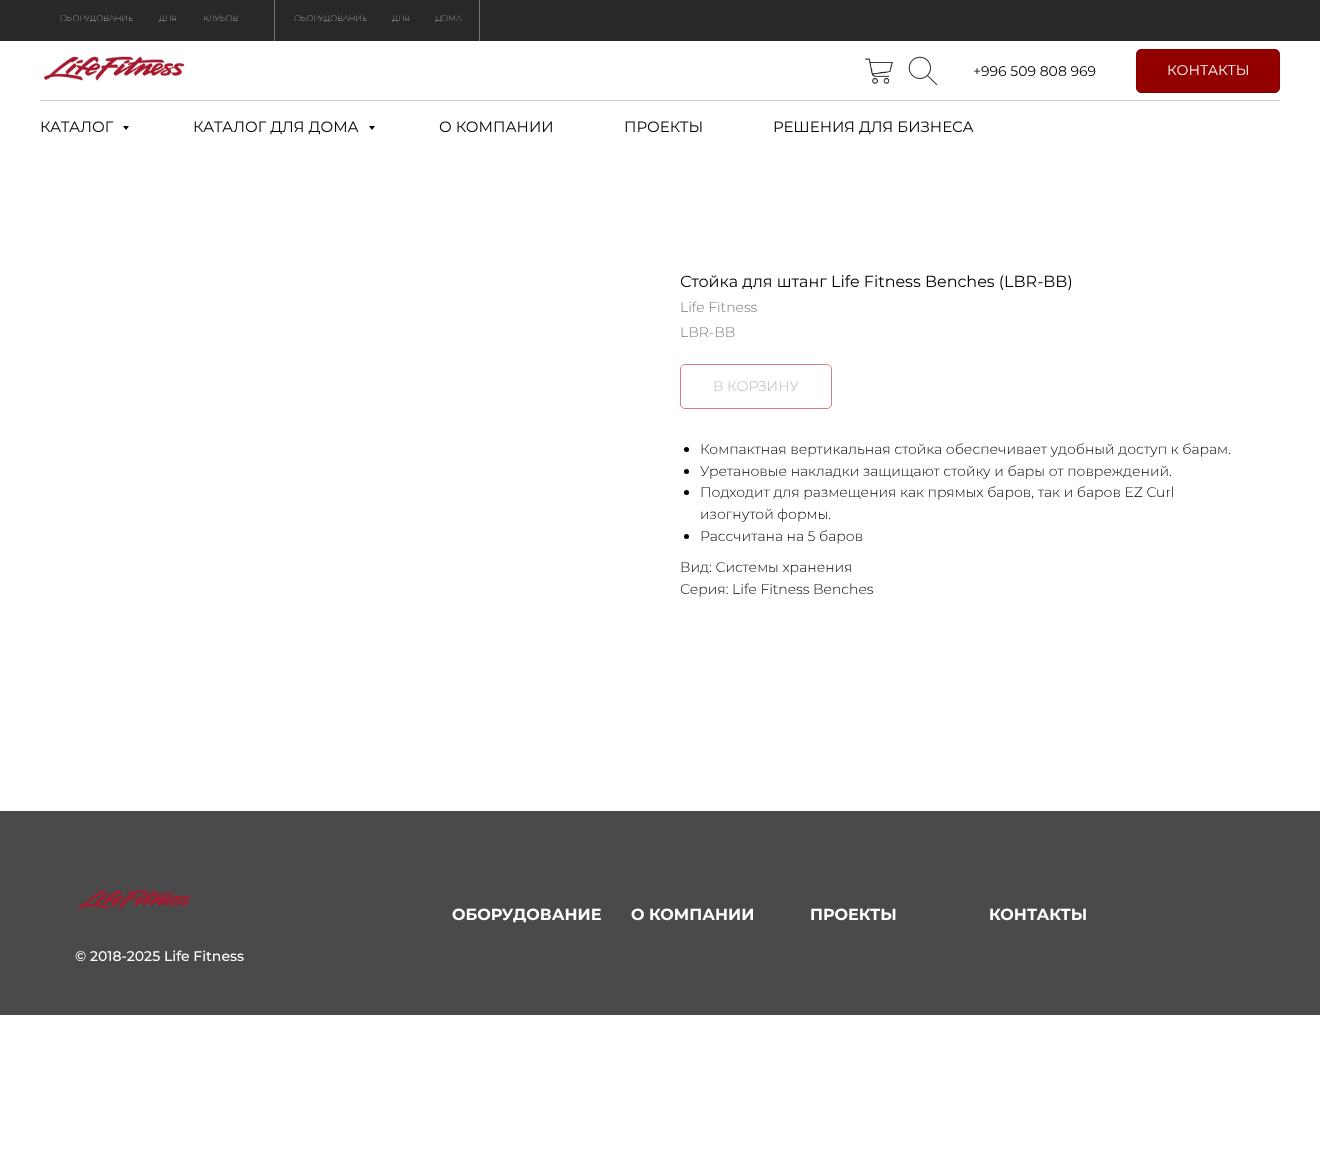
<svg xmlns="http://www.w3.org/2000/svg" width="1320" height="1164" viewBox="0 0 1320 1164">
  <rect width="100%" height="100%" fill="#ffffff"/>
  <rect x="0" y="0" width="1320" height="41" fill="#292828"/>
  <text x="60" y="21" word-spacing="24" font-family="Montserrat" font-size="8" font-weight="100" fill="#ffffff">ОБОРУДОВАНИЕ ДЛЯ КЛУБОВ</text>
  <rect x="274" y="0" width="1" height="41" fill="#747373"/>
  <text x="294" y="21" word-spacing="23" font-family="Montserrat" font-size="8" font-weight="100" fill="#ffffff">ОБОРУДОВАНИЕ ДЛЯ ДОМА</text>
  <rect x="479" y="0" width="1" height="41" fill="#747373"/>
  <image x="43" y="56" width="142" height="25" href="img1.png"/>
  <image x="865" y="58" width="28" height="26" href="img2.png"/>
  <image x="908" y="56" width="30" height="30" href="img3.png"/>
  <text x="973" y="76" font-family="Montserrat" font-size="14" fill="#000000">+996 509 808 969</text>
  <rect x="1136.5" y="49.5" width="143" height="43" rx="4.5" fill="#920000" stroke="#8a0000"/>
  <text x="1167" y="75" font-family="Montserrat" font-size="14" fill="#ffffff">КОНТАКТЫ</text>
  <rect x="40" y="100" width="1240" height="1" fill="#cccccc"/>
  <text x="40" y="132" font-family="Montserrat" font-size="15" fill="#000000">КАТАЛОГ</text>
  <path d="M123 126H129L126 130Z" fill="#000000"/>
  <text x="193" y="132" font-family="Montserrat" font-size="15" fill="#000000">КАТАЛОГ ДЛЯ ДОМА</text>
  <path d="M369 126H375L372 130Z" fill="#000000"/>
  <text x="439" y="132" font-family="Montserrat" font-size="15" fill="#000000">О КОМПАНИИ</text>
  <text x="624" y="132" font-family="Montserrat" font-size="15" fill="#000000">ПРОЕКТЫ</text>
  <text x="773" y="132" font-family="Montserrat" font-size="15" fill="#000000">РЕШЕНИЯ ДЛЯ БИЗНЕСА</text>
  <text x="680" y="287" font-family="Montserrat" font-size="16" fill="#000000">Стойка для штанг Life Fitness Benches (LBR-BB)</text>
  <text x="680" y="312" font-family="Montserrat" font-size="14" font-weight="300" fill="#777777">Life Fitness</text>
  <text x="680" y="337" font-family="Montserrat" font-size="14" font-weight="300" fill="#777777">LBR-BB</text>
  <rect x="680.5" y="364.5" width="151" height="44" rx="4.5" fill="none" stroke="#d48080"/>
  <text x="713" y="391" font-family="Montserrat" font-size="14" font-weight="300" fill="#b6b6b6">В КОРЗИНУ</text>
  <circle cx="686.5" cy="449.5" r="2.5" fill="#000000"/>
  <text x="700" y="454" font-family="Montserrat" font-size="14" font-weight="300" fill="#000000">Компактная вертикальная стойка обеспечивает удобный доступ к барам.</text>
  <circle cx="686.5" cy="471.5" r="2.5" fill="#000000"/>
  <text x="700" y="476" font-family="Montserrat" font-size="14" font-weight="300" fill="#000000">Уретановые накладки защищают стойку и бары от повреждений.</text>
  <circle cx="686.5" cy="492.5" r="2.5" fill="#000000"/>
  <text x="700" y="497" font-family="Montserrat" font-size="14" font-weight="300" fill="#000000">Подходит для размещения как прямых баров, так и баров EZ Curl</text>
  <text x="700" y="519" font-family="Montserrat" font-size="14" font-weight="300" fill="#000000">изогнутой формы.</text>
  <circle cx="686.5" cy="536.5" r="2.5" fill="#000000"/>
  <text x="700" y="541" font-family="Montserrat" font-size="14" font-weight="300" fill="#000000">Рассчитана на 5 баров</text>
  <text x="680" y="572" font-family="Montserrat" font-size="14" font-weight="300" fill="#000000">Вид: Системы хранения</text>
  <text x="680" y="594" font-family="Montserrat" font-size="14" font-weight="300" fill="#000000">Серия: Life Fitness Benches</text>
  <rect x="0" y="811" width="1320" height="204" fill="#4a4a4a"/>
  <text x="452" y="920" font-family="Montserrat" font-size="16" font-weight="bold" fill="#ffffff">ОБОРУДОВАНИЕ</text>
  <text x="631" y="920" font-family="Montserrat" font-size="16" font-weight="bold" fill="#ffffff">О КОМПАНИИ</text>
  <text x="810" y="920" font-family="Montserrat" font-size="16" font-weight="bold" fill="#ffffff">ПРОЕКТЫ</text>
  <text x="989" y="920" font-family="Montserrat" font-size="16" font-weight="bold" fill="#ffffff">КОНТАКТЫ</text>
  <image x="78" y="890" width="113" height="20" href="img4.png"/>
  <text x="75" y="961" font-family="Montserrat" font-size="14" font-weight="500" fill="#ffffff">© 2018-2025 Life Fitness</text>
</svg>
